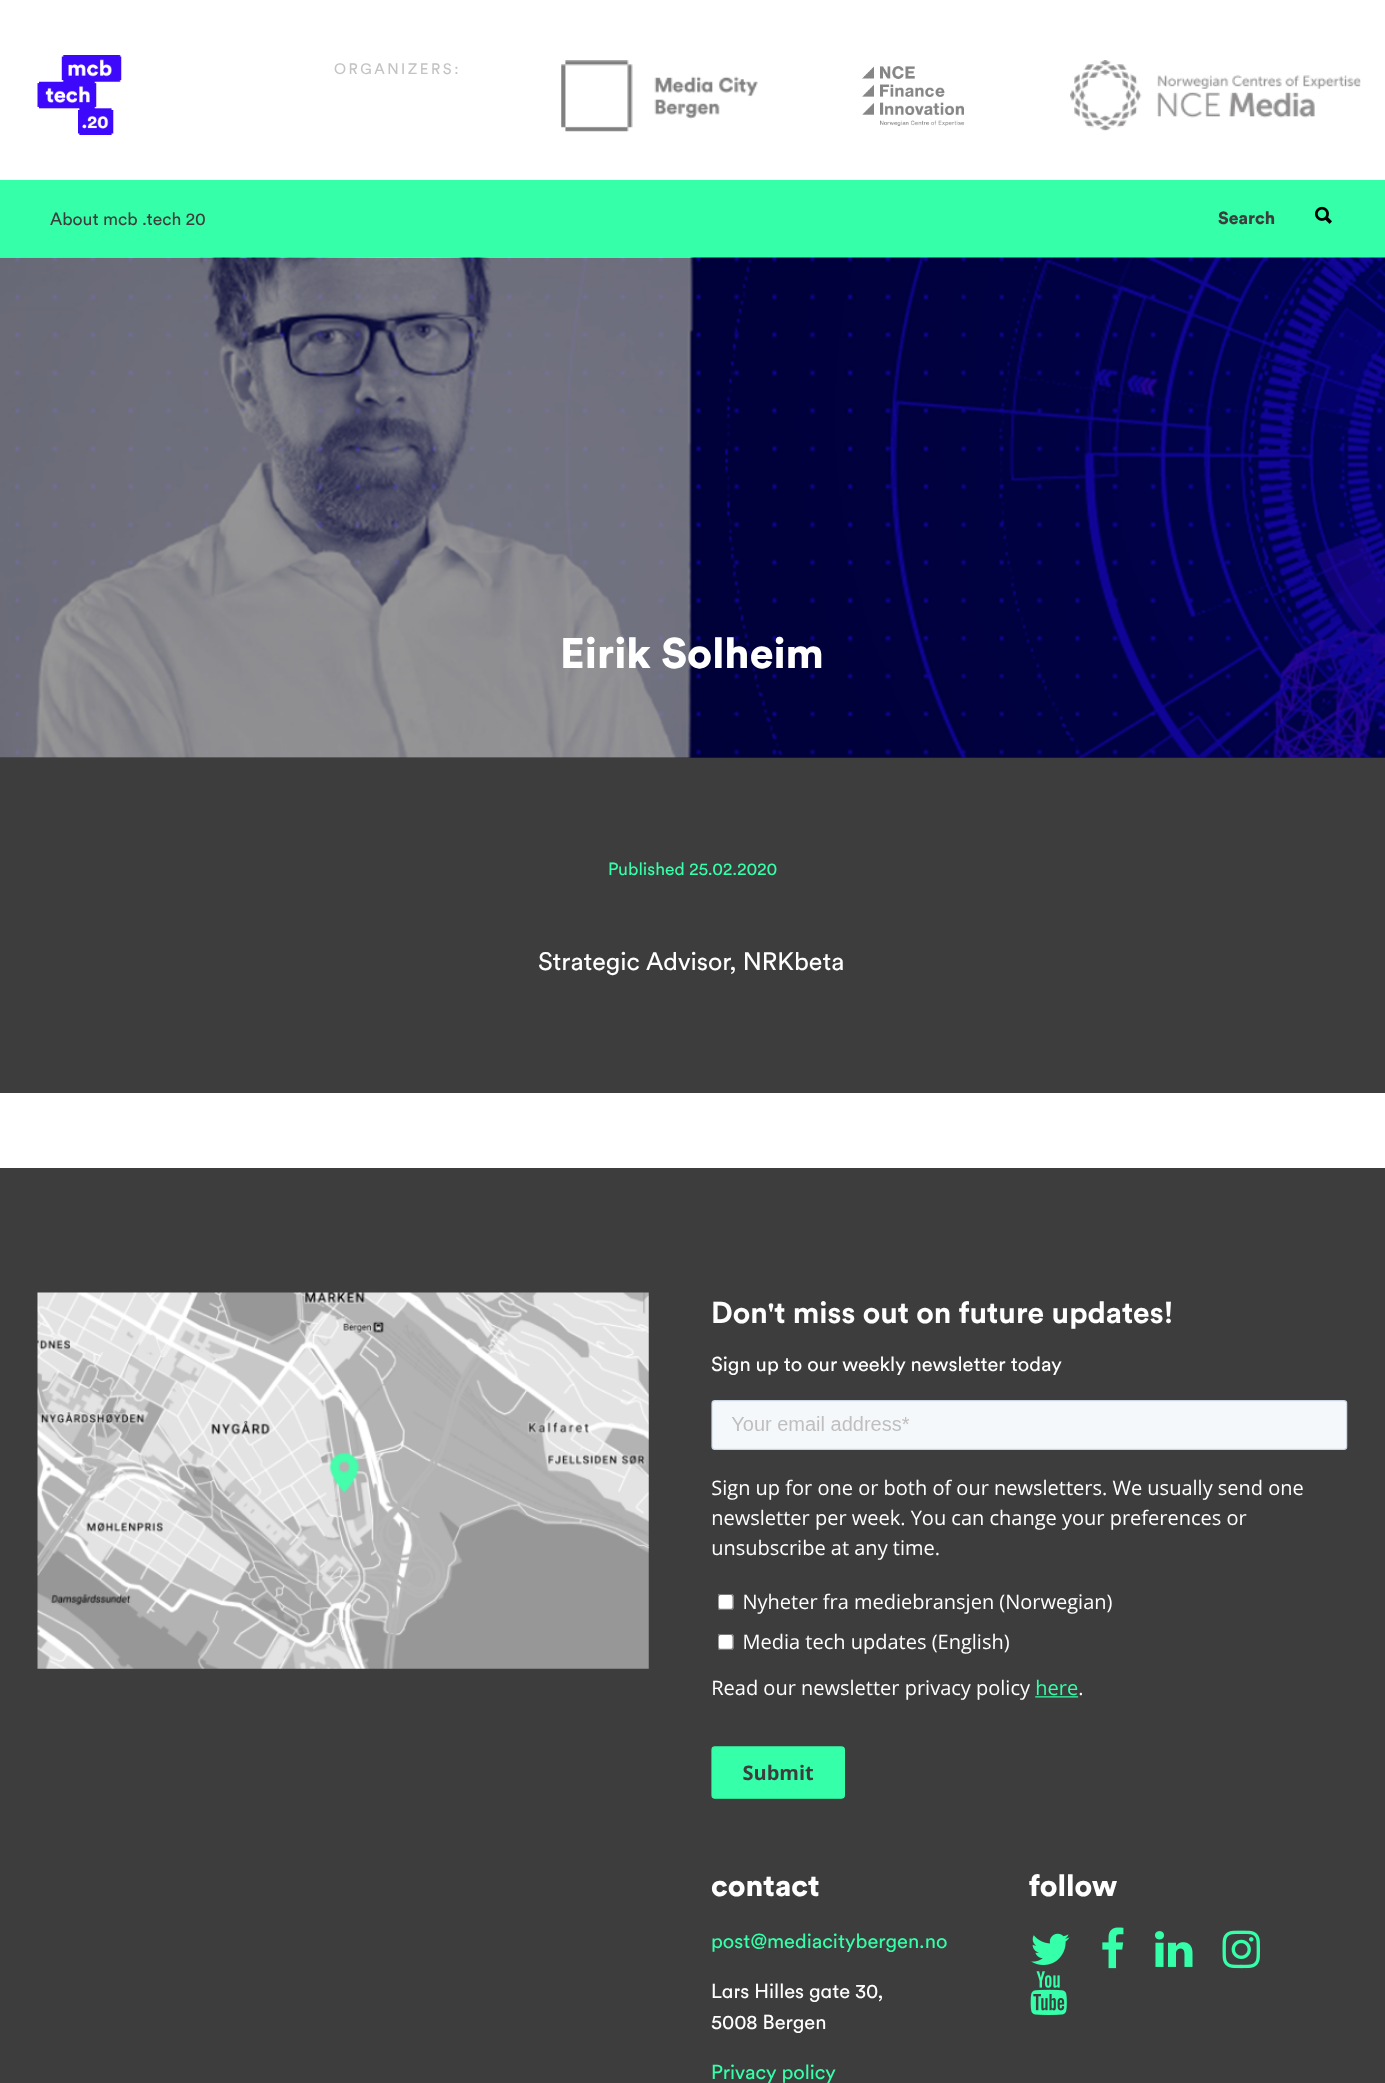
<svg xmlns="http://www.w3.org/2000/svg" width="1385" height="2083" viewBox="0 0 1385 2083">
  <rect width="100%" height="100%" fill="#ffffff"/>
  <image x="37" y="55" width="85" height="80" href="img1.png"/>
  <text x="334" y="74" font-family="Circular" font-size="15" letter-spacing="2.5" fill="#c3c3c3">ORGANIZERS:</text>
  <image x="561" y="60" width="197" height="72" href="img2.png"/>
  <image x="862" y="66" width="103" height="60" href="img3.png"/>
  <image x="1070" y="60" width="291" height="71" href="img4.png"/>
  <rect x="0" y="180" width="1385" height="78" fill="#35ffa8"/>
  <text x="50" y="225" font-family="Circular" font-size="17.5" fill="#3d3d3d">About mcb .tech 20</text>
  <text x="1218" y="224" font-family="Circular" font-size="17.5" font-weight="900" fill="#3d3d3d">Search</text>
  <image x="1315" y="206" width="17" height="18" href="img5.png"/>
  <rect x="0" y="757" width="1385" height="1" fill="#252525"/>
  <image x="0" y="257" width="1385" height="501" href="img6.png"/>
  <text x="560" y="668" font-family="Circular" font-size="42.5" font-weight="900" fill="#ffffff">Eirik Solheim</text>
  <rect x="0" y="758" width="1385" height="335" fill="#3d3d3d"/>
  <text x="608" y="875" font-family="Circular" font-size="17.5" fill="#35ffa8">Published 25.02.2020</text>
  <text x="538" y="970" font-family="Circular" font-size="25" fill="#ffffff">Strategic Advisor, NRKbeta</text>
  <rect x="0" y="1168" width="1385" height="915" fill="#3d3d3d"/>
  <image x="37" y="1292" width="612" height="377" href="img7.png"/>
  <text x="711" y="1323" font-family="Circular" font-size="30" font-weight="bold" fill="#ffffff">Don't miss out on future updates!</text>
  <text x="711" y="1371" font-family="Circular" font-size="20" fill="#ffffff">Sign up to our weekly newsletter today</text>
  <image x="711" y="1400" width="637" height="399" href="img8.png"/>
  <text x="711" y="1896" font-family="Circular" font-size="30" font-weight="900" fill="#ffffff">contact</text>
  <text x="711" y="1948" font-family="Circular" font-size="20" fill="#35ffa8">post@mediacitybergen.no</text>
  <text x="711" y="1998" font-family="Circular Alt" font-size="20" fill="#ffffff">Lars Hilles gate 30,</text>
  <text x="711" y="2029" font-family="Circular" font-size="20" fill="#ffffff">5008 Bergen</text>
  <text x="711" y="2079" font-family="Circular" font-size="20" fill="#35ffa8">Privacy policy</text>
  <text x="1029" y="1896" font-family="Circular" font-size="30" font-weight="900" fill="#ffffff">follow</text>
  <image x="1031" y="1933" width="39" height="32" href="img9.png"/>
  <image x="1102" y="1927" width="22" height="42" href="img10.png"/>
  <image x="1155" y="1931" width="38" height="36" href="img11.png"/>
  <image x="1222" y="1930" width="38" height="39" href="img12.png"/>
  <image x="1030" y="1971" width="37" height="44" href="img13.png"/>
</svg>
